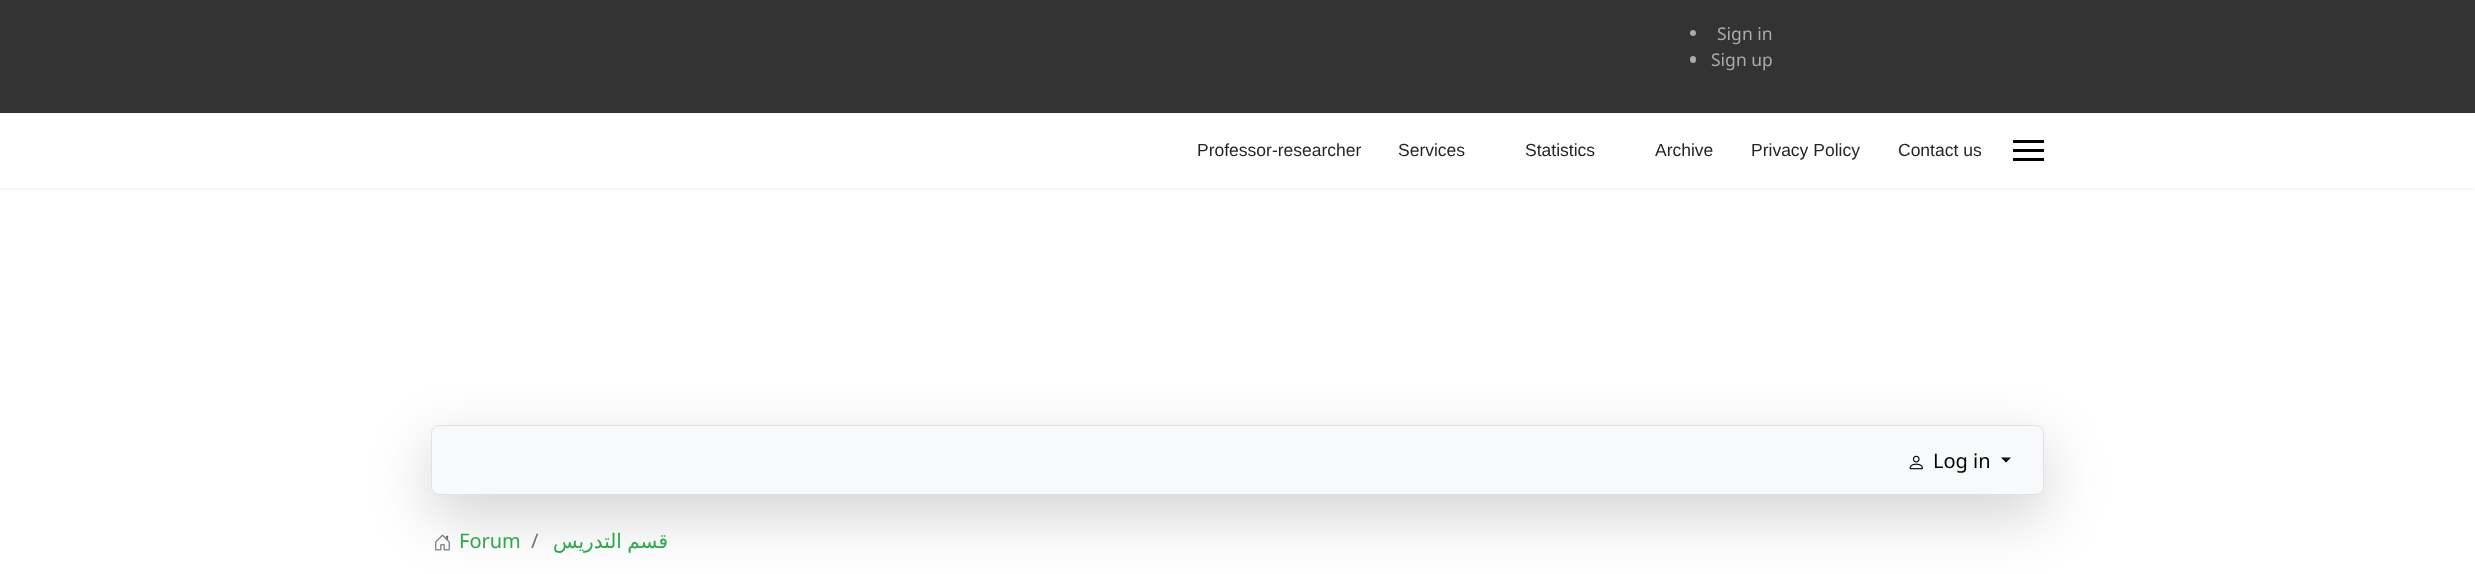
<svg xmlns="http://www.w3.org/2000/svg" width="2475" height="574" viewBox="0 0 2475 574">
  <defs>
    <filter id="blur1" x="-50%" y="-200%" width="200%" height="500%"><feGaussianBlur stdDeviation="2.5"/></filter>
    <filter id="blur2" x="-50%" y="-200%" width="200%" height="500%"><feGaussianBlur stdDeviation="30"/></filter>
  </defs>
  <rect width="100%" height="100%" fill="#ffffff"/>
  <rect x="0" y="0" width="2475" height="113" fill="#333333"/>
  <circle cx="1693" cy="33" r="3" fill="#aaaaaa"/>
  <text x="1717" y="40" font-family="Noto Sans" font-size="17.5" fill="#aaaaaa">Sign in</text>
  <rect x="1690" y="56" width="6" height="7" rx="3" fill="#aaaaaa"/>
  <text x="1711" y="66" font-family="Noto Sans" font-size="17.5" fill="#aaaaaa">Sign up</text>
  <rect x="0" y="113" width="2475" height="75" fill="#000000" fill-opacity="0.1" filter="url(#blur1)"/>
  <rect x="0" y="113" width="2475" height="75" fill="#ffffff"/>
  <text x="1197" y="156" font-family="Liberation Sans" font-size="17.5" fill="#252525">Professor-researcher</text>
  <text x="1398" y="156" font-family="Liberation Sans" font-size="17.5" fill="#252525">Services</text>
  <text x="1525" y="156" font-family="Liberation Sans" font-size="17.5" fill="#252525">Statistics</text>
  <text x="1655" y="156" font-family="Liberation Sans" font-size="17.5" fill="#252525">Archive</text>
  <text x="1751" y="156" font-family="Liberation Sans" font-size="17.5" fill="#252525">Privacy Policy</text>
  <text x="1898" y="156" font-family="Liberation Sans" font-size="17.5" fill="#252525">Contact us</text>
  <rect x="2013" y="140" width="31" height="3" fill="#000000"/>
  <rect x="2013" y="149" width="31" height="3" fill="#000000"/>
  <rect x="2013" y="158" width="31" height="3" fill="#000000"/>
  <image x="435" y="534" width="15" height="17" href="img2.png"/>
  <rect x="431" y="445" width="1613" height="70" rx="8" fill="#000000" fill-opacity="0.18" filter="url(#blur2)"/>
  <rect x="431.5" y="425.5" width="1612" height="69" rx="7.5" fill="#f8f9fa" stroke="#dee2e6"/>
  <image x="1909" y="455" width="14" height="15" href="img1.png"/>
  <text x="1933" y="468" font-family="Noto Sans" font-size="20" fill="#000000">Log in</text>
  <path d="M2001 457.5H2011L2006 462.5Z" fill="#000000"/>
  <text x="459" y="548" font-family="Noto Sans" font-size="20" fill="#2ba84a">Forum</text>
  <text x="531" y="548" font-family="Noto Sans" font-size="20" fill="#6c757d">/</text>
  <text x="668" y="548" word-spacing="-1" font-family="DejaVu Sans" font-size="20" direction="rtl" fill="#2ba84a">قسم التدريس</text>
</svg>
